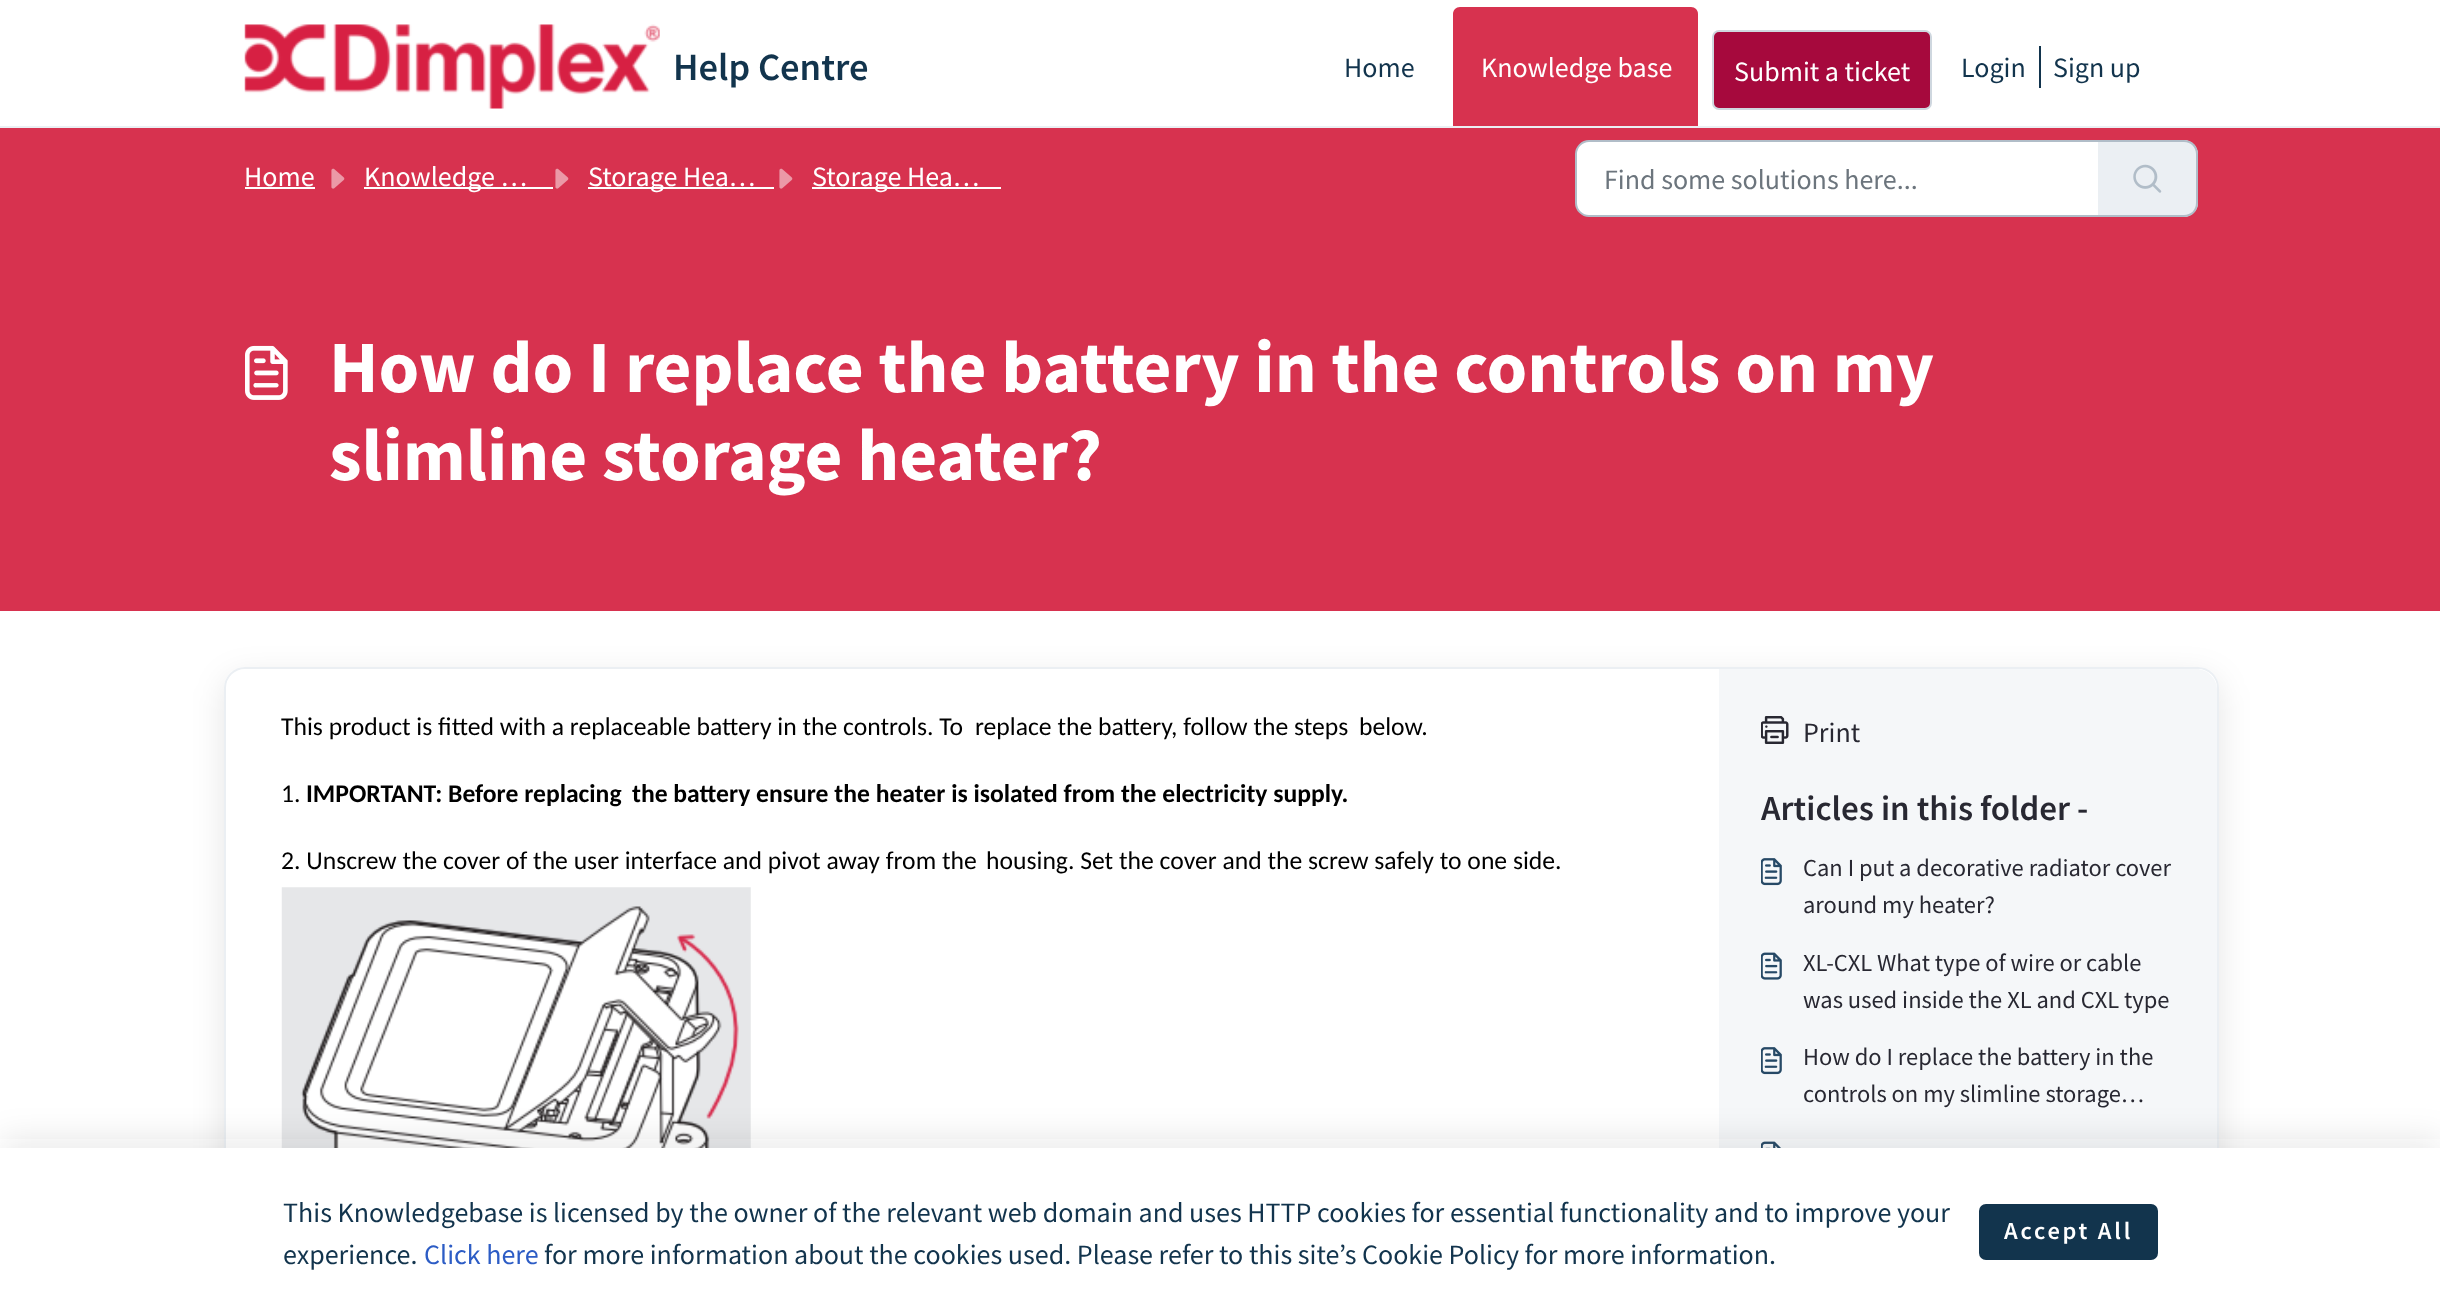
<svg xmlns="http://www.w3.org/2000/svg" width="2440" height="1315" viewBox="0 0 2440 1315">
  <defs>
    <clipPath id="clip1"><path d="M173 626H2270V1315H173ZM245 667H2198C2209.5 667 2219 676.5 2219 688V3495C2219 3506.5 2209.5 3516 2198 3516H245C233.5 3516 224 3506.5 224 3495V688C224 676.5 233.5 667 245 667Z" clip-rule="evenodd"/></clipPath>
    <filter id="blur1" x="-50%" y="-200%" width="200%" height="500%"><feGaussianBlur stdDeviation="16.5"/></filter>
  </defs>
  <rect width="100%" height="100%" fill="#ffffff"/>
  <rect x="0" y="126" width="2440" height="2" fill="#ebeff3"/>
  <image x="244" y="24" width="416" height="85" href="img1.png"/>
  <text x="673" y="80" font-family="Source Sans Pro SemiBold" font-size="38.5" font-weight="600" fill="#12344d">Help Centre</text>
  <text x="1344" y="77" font-family="Source Sans Pro" font-size="28" fill="#12344d">Home</text>
  <path d="M1460 7H1691C1695 7 1698 10 1698 14V126H1453V14C1453 10 1456 7 1460 7Z" fill="#d7324f"/>
  <text x="1481" y="77" font-family="Source Sans Pro" font-size="28" fill="#ffffff">Knowledge base</text>
  <rect x="1713" y="31" width="218" height="78" rx="6" fill="#a6093d" stroke="#cfd7df" stroke-width="2"/>
  <text x="1734" y="81" font-family="Source Sans Pro" font-size="28" fill="#ffffff">Submit a ticket</text>
  <text x="1961" y="77" font-family="Source Sans Pro" font-size="28" fill="#12344d">Login</text>
  <rect x="2039" y="46" width="2" height="42" fill="#12344d"/>
  <text x="2053" y="77" font-family="Source Sans Pro" font-size="28" fill="#12344d">Sign up</text>
  <rect x="0" y="128" width="2440" height="483" fill="#d7324f"/>
  <text x="244" y="186" font-family="Source Sans Pro" font-size="28" fill="#ffffff">Home</text>
  <rect x="245" y="187" width="70" height="2" fill="#ffffff"/>
  <image x="331" y="168" width="14" height="21" href="img2.png"/>
  <rect x="364" y="187" width="189" height="2" fill="#ffffff"/>
  <text x="364" y="186" font-family="Source Sans Pro" font-size="28" fill="#ffffff">Knowledge …</text>
  <image x="555" y="168" width="14" height="21" href="img2.png"/>
  <rect x="588" y="187" width="186" height="2" fill="#ffffff"/>
  <text x="588" y="186" font-family="Source Sans Pro" font-size="28" fill="#ffffff">Storage Hea…</text>
  <image x="779" y="168" width="14" height="21" href="img2.png"/>
  <rect x="812" y="187" width="189" height="2" fill="#ffffff"/>
  <text x="812" y="186" font-family="Source Sans Pro" font-size="28" fill="#ffffff">Storage Hea…</text>
  <path d="M1589 141H2099V216H1589C1582 216 1576 210 1576 203V154C1576 147 1582 141 1589 141Z" fill="#ffffff" stroke="#b1bdc8" stroke-width="2"/>
  <text x="1604" y="189" font-family="Source Sans Pro" font-size="28" fill="#6c757d">Find some solutions here...</text>
  <path d="M2098 140H2184C2191.5 140 2198 146.5 2198 154V203C2198 210.5 2191.5 217 2184 217H2098Z" fill="#ebeff3"/>
  <path d="M2098 140H2184C2192 140 2198 146 2198 154V203C2198 211 2192 217 2184 217H2098ZM2098 142H2184C2191 142 2196 147 2196 154V203C2196 210 2191 215 2184 215H2098Z" fill="#b1bdc8" fill-rule="evenodd"/>
  <image x="2133" y="164" width="29" height="29" href="img3.png"/>
  <image x="245" y="345" width="43" height="55" href="img4.png"/>
  <text x="329" y="392" font-family="Source Sans Pro" font-size="73.5" font-weight="bold" fill="#ffffff">How do I replace the battery in the controls on my</text>
  <text x="329" y="480" font-family="Source Sans Pro" font-size="73.5" font-weight="bold" fill="#ffffff">slimline storage heater?</text>
  <g clip-path="url(#clip1)">
    <rect x="224" y="677" width="1995" height="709" rx="21" fill="#27313a" fill-opacity="0.1" filter="url(#blur1)"/>
  </g>
  <rect x="225" y="668" width="1993" height="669" rx="20" fill="none" stroke="#ebeff3" stroke-width="2"/>
  <text x="281" y="735" font-family="Carlito" font-size="25.65" fill="#000000">This product is fitted with a replaceable battery in the controls. To</text>
  <text x="975" y="735" font-family="Carlito" font-size="25.65" fill="#000000">replace the battery, follow the steps</text>
  <text x="1359" y="735" font-family="Carlito" font-size="25.65" fill="#000000">below.</text>
  <text x="281" y="802" font-family="Carlito" font-size="25.65" fill="#000000">1.</text>
  <text x="306" y="802" font-family="Carlito" font-size="25.65" font-weight="bold" fill="#000000">IMPORTANT: Before replacing</text>
  <text x="632" y="802" font-family="Carlito" font-size="25.65" font-weight="bold" fill="#000000">the battery ensure the heater is isolated from the electricity supply.</text>
  <text x="281" y="869" font-family="Carlito" font-size="25.65" fill="#000000">2. Unscrew the cover of the user interface and pivot away from the</text>
  <text x="986" y="869" font-family="Carlito" font-size="25.65" fill="#000000">housing. Set the cover and the screw safely to one side.</text>
  <image x="281" y="887" width="470" height="261" href="img5.png"/>
  <path d="M1719 669H2196C2207.5 669 2217 678.5 2217 690V1315C2217 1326.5 2207.5 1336 2196 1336H1719Z" fill="#f5f7f9"/>
  <image x="1761" y="716" width="28" height="28" href="img6.png"/>
  <text x="1803" y="742" font-family="Source Sans Pro" font-size="28" fill="#282832">Print</text>
  <text x="1761" y="820" font-family="Source Sans Pro SemiBold" font-size="35" font-weight="600" fill="#282832">Articles in this folder -</text>
  <image x="1761" y="858" width="21" height="28" href="img7.png"/>
  <text x="1803" y="876" font-family="Source Sans Pro" font-size="24.5" fill="#282832">Can I put a decorative radiator cover</text>
  <text x="1803" y="913" font-family="Source Sans Pro" font-size="24.5" fill="#282832">around my heater?</text>
  <image x="1761" y="952" width="21" height="28" href="img8.png"/>
  <text x="1803" y="971" font-family="Source Sans Pro" font-size="24.5" fill="#282832">XL-CXL What type of wire or cable</text>
  <text x="1803" y="1008" font-family="Source Sans Pro" font-size="24.5" fill="#282832">was used inside the XL and CXL type</text>
  <image x="1761" y="1047" width="21" height="28" href="img7.png"/>
  <text x="1803" y="1065" font-family="Source Sans Pro" font-size="24.5" fill="#282832">How do I replace the battery in the</text>
  <text x="1803" y="1102" font-family="Source Sans Pro" font-size="24.5" fill="#282832">controls on my slimline storage…</text>
  <image x="1761" y="1141" width="20" height="7" href="img9.png"/>
  <rect x="0" y="1139" width="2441" height="168" fill="#27313a" fill-opacity="0.1" filter="url(#blur1)"/>
  <rect x="0" y="1148" width="2440" height="167" fill="#ffffff"/>
  <text x="283" y="1222" font-family="Source Sans Pro" font-size="28" fill="#12344d">This Knowledgebase is licensed by the owner of the relevant web domain and uses HTTP cookies for essential functionality and to improve your</text>
  <text x="283" y="1264" font-family="Source Sans Pro" font-size="28" fill="#12344d">experience.</text>
  <text x="424" y="1264" font-family="Source Sans Pro" font-size="28" fill="#2c5cc5">Click here</text>
  <text x="544" y="1264" font-family="Source Sans Pro" font-size="28" fill="#12344d">for more information about the cookies used. Please refer to this site’s Cookie Policy for more information.</text>
  <rect x="1980" y="1205" width="177" height="54" rx="6" fill="#12344d" stroke="#12344d" stroke-width="2"/>
  <text x="2004" y="1239" font-family="Source Sans Pro SemiBold" font-size="24.5" font-weight="600" letter-spacing="2.75" fill="#ffffff">Accept All</text>
</svg>
